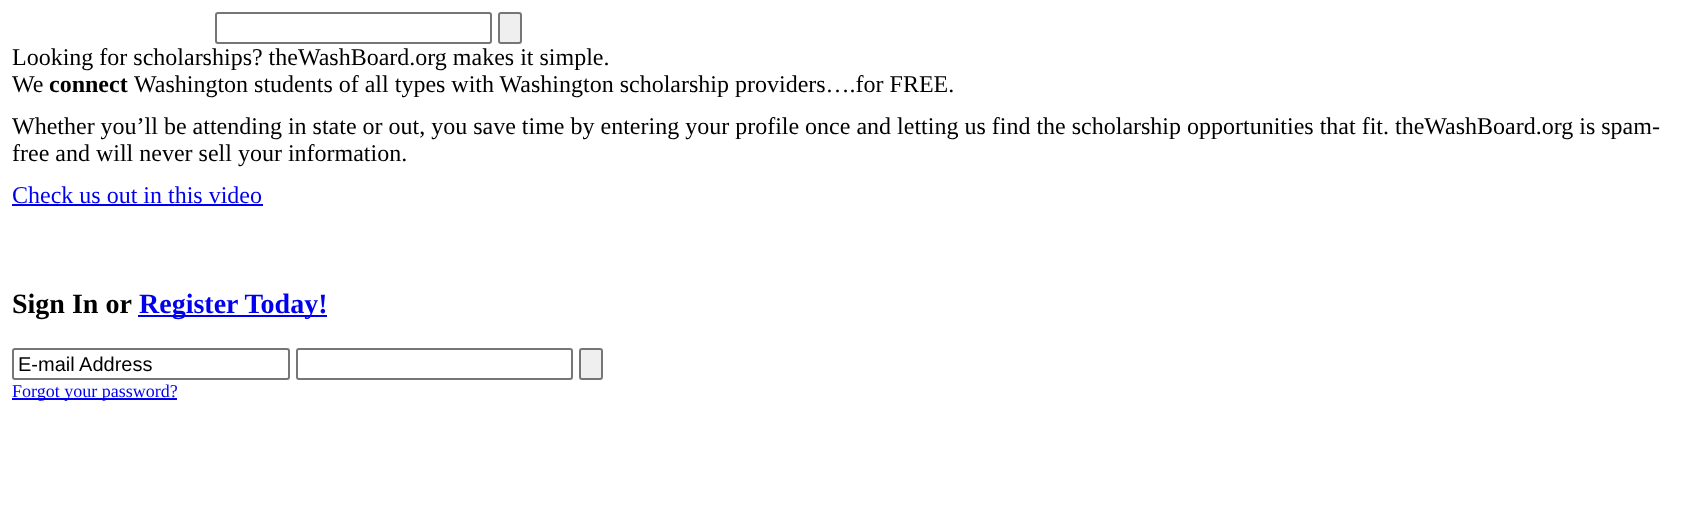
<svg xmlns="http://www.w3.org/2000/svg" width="1694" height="509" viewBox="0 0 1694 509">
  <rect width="100%" height="100%" fill="#ffffff"/>
  <rect x="216" y="13" width="275" height="30" rx="2" fill="none" stroke="#767676" stroke-width="2"/>
  <rect x="499" y="13" width="22" height="30" rx="2" fill="#efefef" stroke="#767676" stroke-width="2"/>
  <text x="12" y="65" font-family="Liberation Serif" font-size="24" fill="#000000">Looking for scholarships? theWashBoard.org makes it simple.</text>
  <text x="12" y="92" font-family="Liberation Serif" font-size="24" fill="#000000">We</text>
  <text x="49" y="92" font-family="Liberation Serif" font-size="24" font-weight="bold" fill="#000000">connect</text>
  <text x="134" y="92" font-family="Liberation Serif" font-size="24" fill="#000000">Washington students of all types with Washington scholarship providers….for FREE.</text>
  <text x="12" y="134" font-family="Liberation Serif" font-size="24" fill="#000000">Whether you’ll be attending in state or out, you save time by entering your profile once and letting us find the scholarship opportunities that fit. theWashBoard.org is spam-</text>
  <text x="12" y="161" font-family="Liberation Serif" font-size="24" fill="#000000">free and will never sell your information.</text>
  <text x="12" y="203" font-family="Liberation Serif" font-size="24" fill="#0000ee">Check us out in this video</text>
  <rect x="12" y="204" width="251" height="2" fill="#0000ee"/>
  <text x="12" y="313" font-family="Liberation Serif" font-size="28" font-weight="bold" fill="#000000">Sign In or</text>
  <rect x="138" y="315" width="189" height="2" fill="#0000ee"/>
  <text x="139" y="313" font-family="Liberation Serif" font-size="28" font-weight="bold" fill="#0000ee">Register Today!</text>
  <rect x="13" y="349" width="276" height="30" rx="2" fill="none" stroke="#767676" stroke-width="2"/>
  <text x="18" y="371" font-family="Liberation Sans" font-size="20" fill="#000000">E-mail Address</text>
  <rect x="297" y="349" width="275" height="30" rx="2" fill="none" stroke="#767676" stroke-width="2"/>
  <rect x="580" y="349" width="22" height="30" rx="2" fill="#efefef" stroke="#767676" stroke-width="2"/>
  <rect x="12" y="398" width="165" height="2" fill="#0000ee"/>
  <text x="12" y="397" font-family="Liberation Serif" font-size="18" fill="#0000ee">Forgot your password?</text>
</svg>
